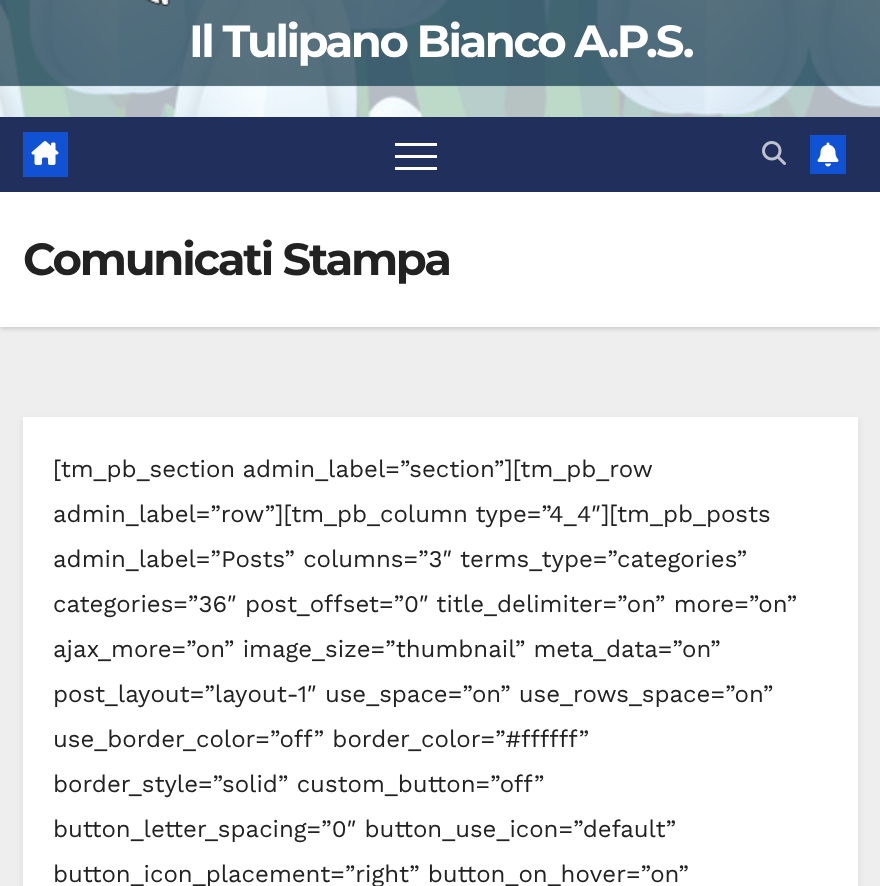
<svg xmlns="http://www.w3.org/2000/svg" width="880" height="886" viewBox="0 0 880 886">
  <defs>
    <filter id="blur1" x="-50%" y="-200%" width="200%" height="500%"><feGaussianBlur stdDeviation="2"/></filter>
    <filter id="blur2" x="-50%" y="-200%" width="200%" height="500%"><feGaussianBlur stdDeviation="3"/></filter>
  </defs>
  <rect width="100%" height="100%" fill="#eeeeee"/>
  <image x="0" y="0" width="880" height="117" href="img1.png"/>
  <image x="145" y="0" width="25" height="6" href="img2.png"/>
  <text x="189" y="57" font-family="Montserrat" font-size="45" font-weight="bold" letter-spacing="-2.55" fill="#ffffff">Il Tulipano Bianco A.P.S.</text>
  <rect x="0" y="194" width="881" height="135" fill="#000000" fill-opacity="0.15" filter="url(#blur1)"/>
  <rect x="0" y="117" width="880" height="75" fill="#202f5b"/>
  <rect x="23" y="132" width="45" height="45" fill="#1151d3"/>
  <image x="31" y="141" width="28" height="24" href="img3.png"/>
  <rect x="395" y="143" width="42" height="3" fill="#ffffff"/>
  <rect x="395" y="155" width="42" height="3" fill="#ffffff"/>
  <rect x="395" y="167" width="42" height="3" fill="#ffffff"/>
  <image x="762" y="141" width="24" height="24" href="img4.png"/>
  <rect x="810" y="135" width="36" height="39" fill="#1151d3"/>
  <image x="817" y="142" width="22" height="25" href="img5.png"/>
  <rect x="0" y="192" width="880" height="135" fill="#ffffff"/>
  <text x="23" y="275" font-family="Montserrat" font-size="45" font-weight="bold" letter-spacing="-2.25" fill="#222222">Comunicati Stampa</text>
  <rect x="23" y="420" width="835" height="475" fill="#000000" fill-opacity="0.08" filter="url(#blur2)"/>
  <rect x="23" y="417" width="835" height="469" fill="#ffffff"/>
  <text x="53" y="477" word-spacing="-1" font-family="Work Sans" font-size="24" fill="#222222">[tm_pb_section admin_label=”section”][tm_pb_row</text>
  <text x="53" y="522" font-family="Work Sans" font-size="24" fill="#222222">admin_label=”row”][tm_pb_column type=”4_4″][tm_pb_posts</text>
  <text x="53" y="567" font-family="Work Sans" font-size="24" fill="#222222">admin_label=”Posts” columns=”3″ terms_type=”categories”</text>
  <text x="53" y="612" font-family="Work Sans" font-size="24" fill="#222222">categories=”36″ post_offset=”0″ title_delimiter=”on” more=”on”</text>
  <text x="53" y="657" font-family="Work Sans" font-size="24" fill="#222222">ajax_more=”on” image_size=”thumbnail” meta_data=”on”</text>
  <text x="53" y="702" font-family="Work Sans" font-size="24" fill="#222222">post_layout=”layout-1″ use_space=”on” use_rows_space=”on”</text>
  <text x="53" y="747" font-family="Work Sans" font-size="24" fill="#222222">use_border_color=”off” border_color=”#ffffff”</text>
  <text x="53" y="792" font-family="Work Sans" font-size="24" fill="#222222">border_style=”solid” custom_button=”off”</text>
  <text x="53" y="837" font-family="Work Sans" font-size="24" fill="#222222">button_letter_spacing=”0″ button_use_icon=”default”</text>
  <text x="53" y="882" font-family="Work Sans" font-size="24" fill="#222222">button_icon_placement=”right” button_on_hover=”on”</text>
</svg>
